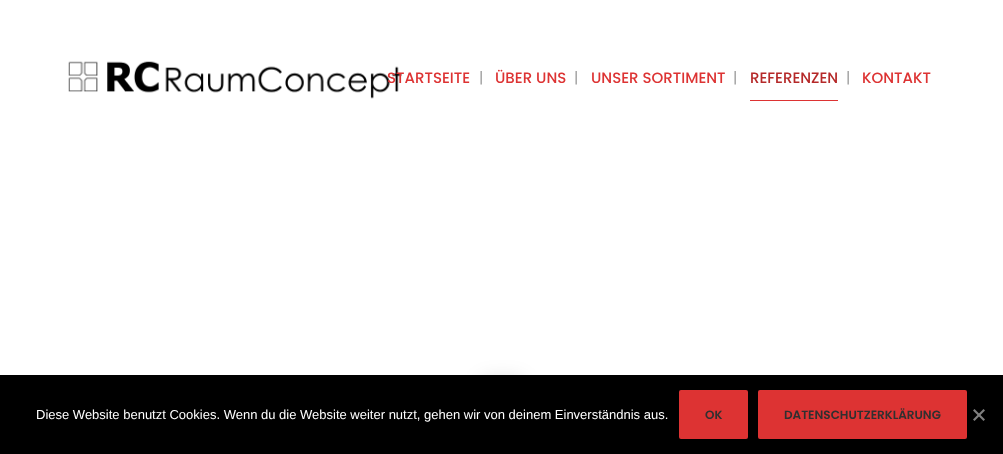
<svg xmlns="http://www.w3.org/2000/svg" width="1003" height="454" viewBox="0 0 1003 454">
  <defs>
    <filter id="blur1" x="-50%" y="-200%" width="200%" height="500%"><feGaussianBlur stdDeviation="10"/></filter>
  </defs>
  <rect width="100%" height="100%" fill="#ffffff"/>
  <image x="68" y="61" width="334" height="38" href="img1.png"/>
  <text x="387" y="83" font-family="Poppins" font-size="15" font-weight="500" fill="#dd3333">STARTSEITE</text>
  <text x="479" y="83" font-family="Poppins" font-size="15" fill="#9e9e9e">|</text>
  <text x="495" y="83" font-family="Poppins" font-size="15" font-weight="500" fill="#dd3333">ÜBER UNS</text>
  <text x="574" y="83" font-family="Poppins" font-size="15" fill="#9e9e9e">|</text>
  <text x="591" y="83" font-family="Poppins" font-size="15" font-weight="500" fill="#dd3333">UNSER SORTIMENT</text>
  <text x="733" y="83" font-family="Poppins" font-size="15" fill="#9e9e9e">|</text>
  <text x="750" y="83" font-family="Poppins" font-size="15" font-weight="500" fill="#b52929">REFERENZEN</text>
  <rect x="750" y="100" width="88" height="1" fill="#dd3333"/>
  <text x="846" y="83" font-family="Poppins" font-size="15" fill="#9e9e9e">|</text>
  <text x="862" y="83" font-family="Poppins" font-size="15" font-weight="500" fill="#dd3333">KONTAKT</text>
  <rect x="482" y="380" width="40" height="40" rx="3" fill="#000000" fill-opacity="0.15" filter="url(#blur1)"/>
  <rect x="0" y="375" width="1003" height="79" fill="#000000"/>
  <text x="36" y="419" font-family="Liberation Sans" font-size="13" fill="#ffffff">Diese Website benutzt Cookies. Wenn du die Website weiter nutzt, gehen wir von deinem Einverständnis aus.</text>
  <rect x="679" y="390" width="69" height="49" rx="2" fill="#dd3333"/>
  <text x="705" y="419" font-family="Poppins" font-size="12" font-weight="600" fill="#303030">OK</text>
  <rect x="758" y="390" width="209" height="49" rx="2" fill="#dd3333"/>
  <text x="784" y="419" font-family="Poppins" font-size="12" font-weight="600" fill="#303030">DATENSCHUTZERKLÄRUNG</text>
  <path d="M983.5 409L985 410.5L974.5 421L973 419.5Z" fill="#808080"/>
  <path d="M973 410.5L974.5 409L985 419.5L983.5 421Z" fill="#808080"/>
</svg>
